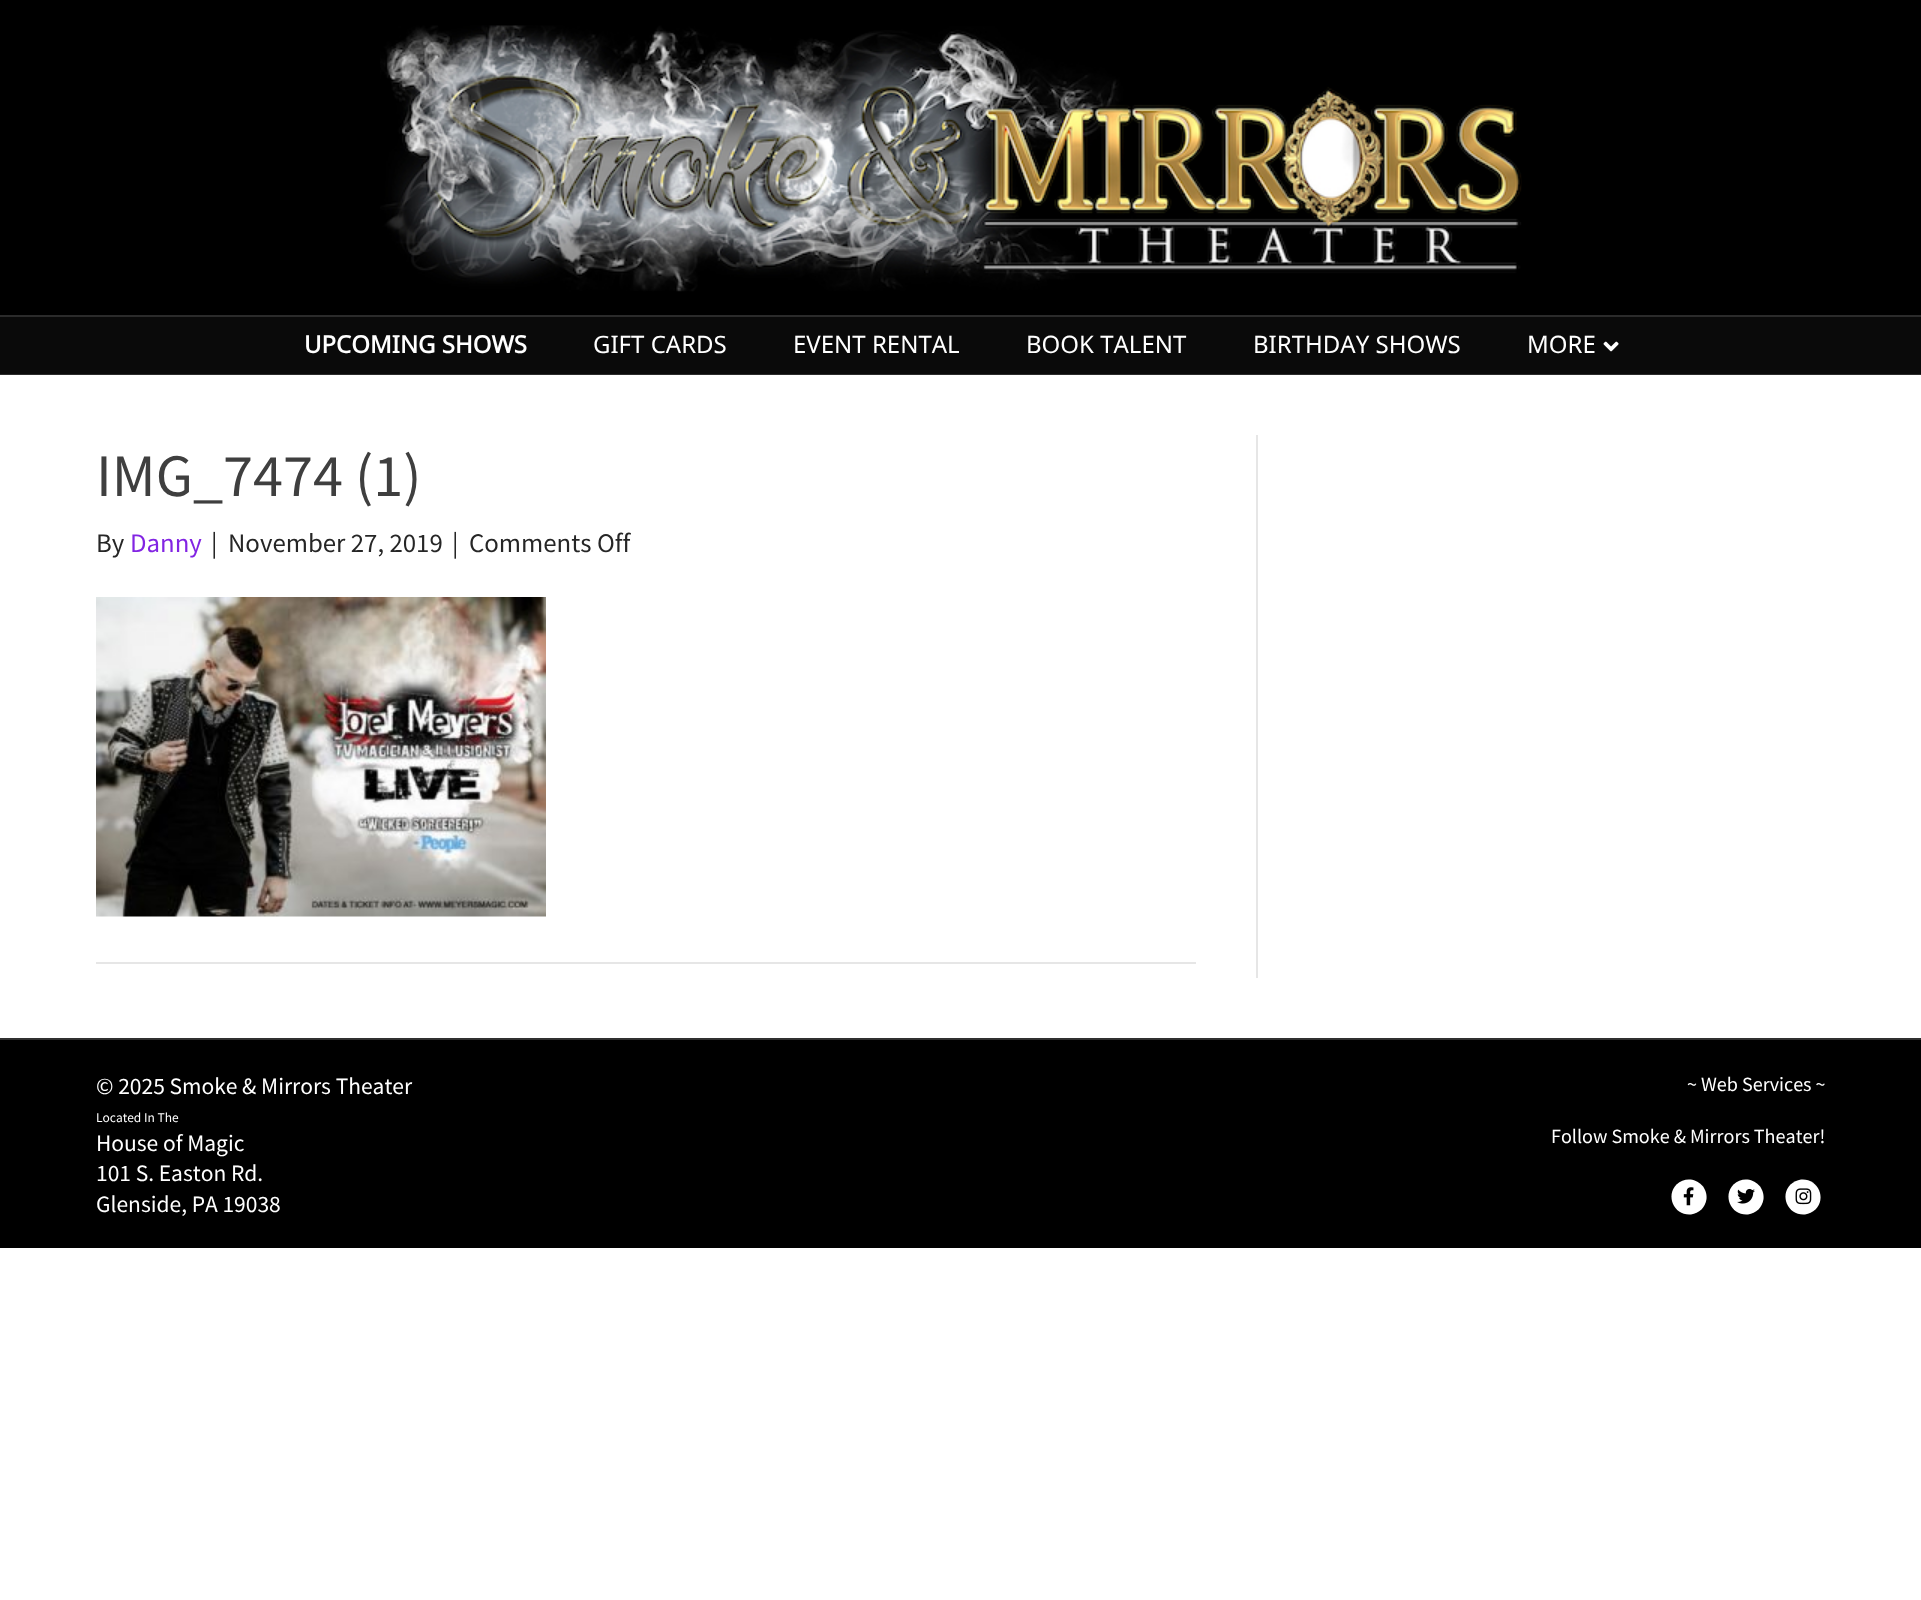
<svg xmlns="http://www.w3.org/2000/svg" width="1921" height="1600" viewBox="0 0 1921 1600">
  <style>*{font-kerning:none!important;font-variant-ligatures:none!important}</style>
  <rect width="100%" height="100%" fill="#ffffff"/>
  <rect x="0" y="0" width="1921" height="315" fill="#000000"/>
  <image x="380" y="25" width="1142" height="267" href="img1.png"/>
  <rect x="0" y="317" width="1921" height="57" fill="#0a0a0a"/>
  <rect x="0" y="315" width="1921" height="2" fill="#2b2b2b"/>
  <rect x="0" y="374" width="1921" height="1" fill="#2b2b2b"/>
  <text x="304" y="353" font-family="Noto Sans" font-size="24" font-weight="bold" fill="#ffffff">UPCOMING SHOWS</text>
  <text x="593" y="353" font-family="Noto Sans" font-size="24" fill="#ffffff">GIFT CARDS</text>
  <text x="793" y="353" font-family="Noto Sans" font-size="24" fill="#ffffff">EVENT RENTAL</text>
  <text x="1026" y="353" font-family="Noto Sans" font-size="24" fill="#ffffff">BOOK TALENT</text>
  <text x="1253" y="353" font-family="Noto Sans" font-size="24" fill="#ffffff">BIRTHDAY SHOWS</text>
  <text x="1527" y="353" font-family="Noto Sans" font-size="24" fill="#ffffff">MORE</text>
  <image x="1603" y="341" width="16" height="11" href="img2.png"/>
  <rect x="1256" y="435" width="2" height="543" fill="#e6e6e6"/>
  <text x="96" y="496" font-family="Noto Sans JP" font-size="54" fill="#3f3f3f">IMG_7474 (1)</text>
  <text x="96" y="552" font-family="Noto Sans JP" font-size="24" fill="#262626">By</text>
  <text x="130" y="552" font-family="Noto Sans JP" font-size="24" fill="#8224e3">Danny</text>
  <text x="211" y="552" font-family="Noto Sans JP" font-size="24" fill="#262626">|</text>
  <text x="228" y="552" font-family="Noto Sans JP" font-size="24" fill="#262626">November 27, 2019</text>
  <text x="452" y="552" font-family="Noto Sans JP" font-size="24" fill="#262626">|</text>
  <text x="469" y="552" font-family="Noto Sans JP" font-size="24" fill="#262626">Comments Off</text>
  <image x="96" y="597" width="450" height="320" href="img3.png"/>
  <rect x="96" y="962" width="1100" height="2" fill="#e6e6e6"/>
  <rect x="0" y="1040" width="1921" height="208" fill="#000000"/>
  <rect x="0" y="1038" width="1921" height="2" fill="#303030"/>
  <text x="96" y="1094" font-family="Noto Sans JP" font-size="21" fill="#ffffff">© 2025 Smoke &amp; Mirrors Theater</text>
  <text x="96" y="1122" font-family="Noto Sans JP" font-size="12" fill="#ffffff">Located In The</text>
  <text x="96" y="1151" font-family="Noto Sans JP" font-size="21" fill="#ffffff">House of Magic</text>
  <text x="96" y="1181" font-family="Noto Sans JP" font-size="21" fill="#ffffff">101 S. Easton Rd.</text>
  <text x="96" y="1212" font-family="Noto Sans JP" font-size="21" fill="#ffffff">Glenside, PA 19038</text>
  <text x="1687" y="1091" font-family="Noto Sans JP" font-size="18" fill="#ffffff">~ Web Services ~</text>
  <text x="1551" y="1143" font-family="Noto Sans JP" font-size="18" fill="#ffffff">Follow Smoke &amp; Mirrors Theater!</text>
  <path d="M1676.5 1184.5C1688.5 1173 1708 1182.5 1706.5 1199C1706 1203 1704 1206.5 1701.5 1209.5C1698.5 1212 1695 1214 1691 1214.5C1674.5 1216 1665 1196.5 1676.5 1184.5Z" fill="#ffffff"/>
  <image x="1683" y="1187" width="11" height="19" href="img4.png"/>
  <path d="M1733.5 1184.5C1745.5 1173 1765 1182.5 1763.5 1199C1763 1203 1761 1206.5 1758.5 1209.5C1755.5 1212 1752 1214 1748 1214.5C1731.5 1216 1722 1196.5 1733.5 1184.5Z" fill="#ffffff"/>
  <image x="1737" y="1188" width="18" height="16" href="img5.png"/>
  <path d="M1790.5 1184.5C1793.5 1182 1797 1180 1801 1179.5C1817.5 1178 1827 1197.5 1815.5 1209.5C1812.5 1212 1809 1214 1805 1214.5C1788.5 1216 1779 1196.5 1790.5 1184.5Z" fill="#ffffff"/>
  <image x="1795" y="1188" width="17" height="17" href="img6.png"/>
</svg>
